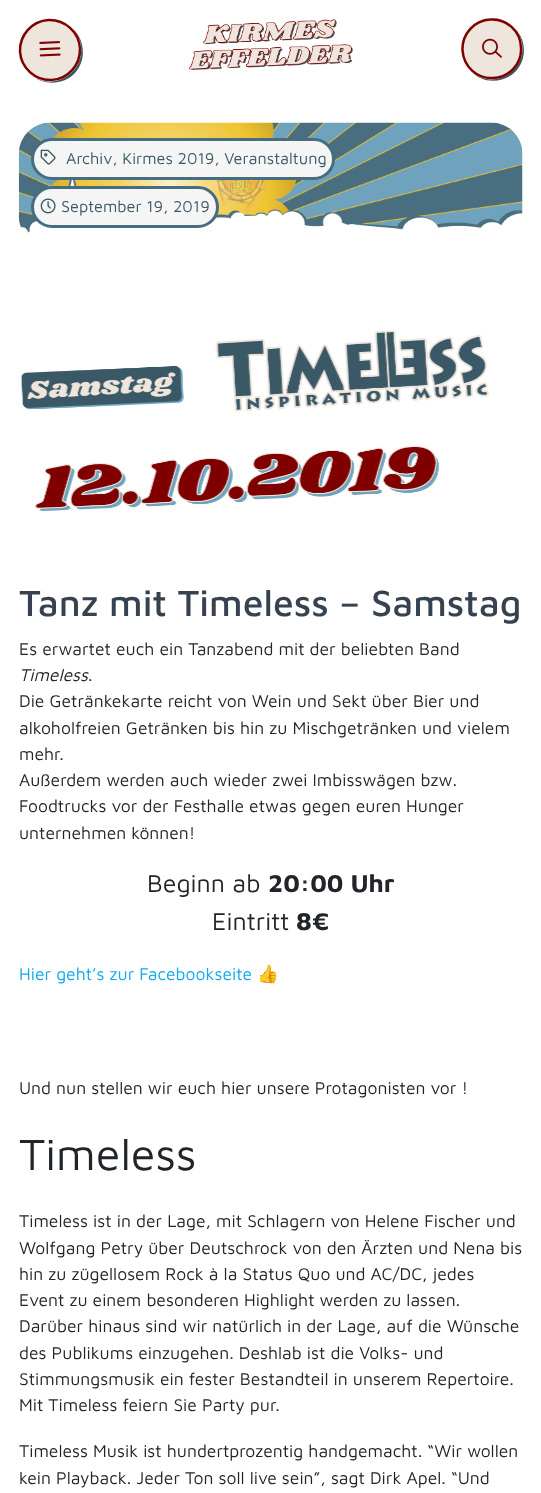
<svg xmlns="http://www.w3.org/2000/svg" width="541" height="1493" viewBox="0 0 541 1493">
  <rect width="100%" height="100%" fill="#ffffff"/>
  <path d="M31 75C44 86 64 85 75 73C87 60 85 39 72 28C99 56 62 98 31 75Z" fill="#3a5866"/>
  <path d="M49 19C66 18 80 31 81 49C82 66 69 80 51 81C34 82 20 69 19 51C18 34 31 20 49 19Z" fill="#eee5dc"/>
  <path d="M48.5 20C65 19.5 79 32 80 48.5C80.5 65 68 79 51.5 80C35 80.5 21 68 20 51.5C19.5 35 32 21 48.5 20Z" fill="none" stroke="#800000" stroke-width="2.5"/>
  <image x="39" y="41" width="22" height="16" href="img1.png"/>
  <image x="189" y="19" width="164" height="51" href="img2.png"/>
  <path d="M471 71C482 84 504 84 516 71C528 58 526 37 513 27C525 38 526 57 514 69C503 82 483 83 471 71Z" fill="#3a5866"/>
  <path d="M490 18C507 17 522 30 522 47C523 64 510 79 493 79C476 80 462 67 461 50C461 33 474 19 490 18Z" fill="#eee5dc"/>
  <path d="M490.5 19.5C506.5 18.5 520.5 31 521 47.5C522 63.5 509.5 77.5 493 78C477 79 463.5 66.5 462.5 50C462 34 474.5 20 490.5 19.5Z" fill="none" stroke="#800000" stroke-width="2.5"/>
  <image x="482" y="38" width="20" height="20" href="img3.png"/>
  <image x="18" y="122" width="505" height="111" href="img4.png"/>
  <rect x="32.5" y="139.5" width="301" height="39" rx="19.5" fill="#f5f5f5" stroke="#476d80" stroke-width="3"/>
  <image x="40" y="149" width="16" height="16" href="img5.png"/>
  <text x="66" y="164" font-family="Maven Pro" font-size="16.25" fill="#3a5866">Archiv, Kirmes 2019, Veranstaltung</text>
  <rect x="32.5" y="187.5" width="185" height="39" rx="19.5" fill="#f5f5f5" stroke="#476d80" stroke-width="3"/>
  <image x="40" y="198" width="16" height="16" href="img6.png"/>
  <text x="61" y="212" font-family="Maven Pro" font-size="16.25" fill="#3a5866">September 19, 2019</text>
  <image x="20" y="330" width="469" height="181" href="img7.png"/>
  <text x="19" y="616" font-family="Maven Pro" font-size="37.5" font-weight="500" fill="#374250">Tanz mit Timeless – Samstag</text>
  <text x="19" y="655" font-family="Maven Pro" font-size="17.5" fill="#212529">Es erwartet euch ein Tanzabend mit der beliebten Band</text>
  <text x="19" y="681" font-family="Maven Pro" font-size="17.5" font-style="italic" fill="#212529">Timeless</text>
  <text x="88" y="681" font-family="Maven Pro" font-size="17.5" fill="#212529">.</text>
  <text x="19" y="707" font-family="Maven Pro" font-size="17.5" fill="#212529">Die Getränkekarte reicht von Wein und Sekt über Bier und</text>
  <text x="19" y="734" font-family="Maven Pro" font-size="17.5" fill="#212529">alkoholfreien Getränken bis hin zu Mischgetränken und vielem</text>
  <text x="19" y="760" font-family="Maven Pro" font-size="17.5" fill="#212529">mehr.</text>
  <text x="19" y="786" font-family="Maven Pro" font-size="17.5" fill="#212529">Außerdem werden auch wieder zwei Imbisswägen bzw.</text>
  <text x="19" y="812" font-family="Maven Pro" font-size="17.5" fill="#212529">Foodtrucks vor der Festhalle etwas gegen euren Hunger</text>
  <text x="19" y="839" font-family="Maven Pro" font-size="17.5" fill="#212529">unternehmen können!</text>
  <text x="147" y="892" font-family="Maven Pro" font-size="25" fill="#212529">Beginn ab</text>
  <text x="268" y="892" font-family="Maven Pro" font-size="25" font-weight="bold" fill="#212529">20:00 Uhr</text>
  <text x="212" y="930" font-family="Maven Pro" font-size="25" fill="#212529">Eintritt</text>
  <text x="296" y="930" font-family="Maven Pro" font-size="25" font-weight="bold" fill="#212529">8€</text>
  <text x="19" y="980" font-family="Maven Pro" font-size="17.5" fill="#0da9ef">Hier geht’s zur Facebookseite</text>
  <text x="257" y="980" font-family="Noto Color Emoji" font-size="17.5" fill="#212529">👍</text>
  <text x="19" y="1094" font-family="Maven Pro" font-size="17.5" fill="#212529">Und nun stellen wir euch hier unsere Protagonisten vor !</text>
  <text x="19" y="1170" font-family="Maven Pro" font-size="45" fill="#212529">Timeless</text>
  <text x="19" y="1227" font-family="Maven Pro" font-size="17.5" fill="#212529">Timeless ist in der Lage, mit Schlagern von Helene Fischer und</text>
  <text x="19" y="1254" font-family="Maven Pro" font-size="17.5" fill="#212529">Wolfgang Petry über Deutschrock von den Ärzten und Nena bis</text>
  <text x="19" y="1280" font-family="Maven Pro" font-size="17.5" fill="#212529">hin zu zügellosem Rock à la Status Quo und AC/DC, jedes</text>
  <text x="19" y="1306" font-family="Maven Pro" font-size="17.5" fill="#212529">Event zu einem besonderen Highlight werden zu lassen.</text>
  <text x="19" y="1332" font-family="Maven Pro" font-size="17.5" fill="#212529">Darüber hinaus sind wir natürlich in der Lage, auf die Wünsche</text>
  <text x="19" y="1359" font-family="Maven Pro" font-size="17.5" fill="#212529">des Publikums einzugehen. Deshlab ist die Volks- und</text>
  <text x="19" y="1385" font-family="Maven Pro" font-size="17.5" fill="#212529">Stimmungsmusik ein fester Bestandteil in unserem Repertoire.</text>
  <text x="19" y="1411" font-family="Maven Pro" font-size="17.5" fill="#212529">Mit Timeless feiern Sie Party pur.</text>
  <text x="19" y="1457" font-family="Maven Pro" font-size="17.5" fill="#212529">Timeless Musik ist hundertprozentig handgemacht. “Wir wollen</text>
  <text x="19" y="1484" font-family="Maven Pro" font-size="17.5" fill="#212529">kein Playback. Jeder Ton soll live sein”, sagt Dirk Apel. “Und</text>
</svg>
